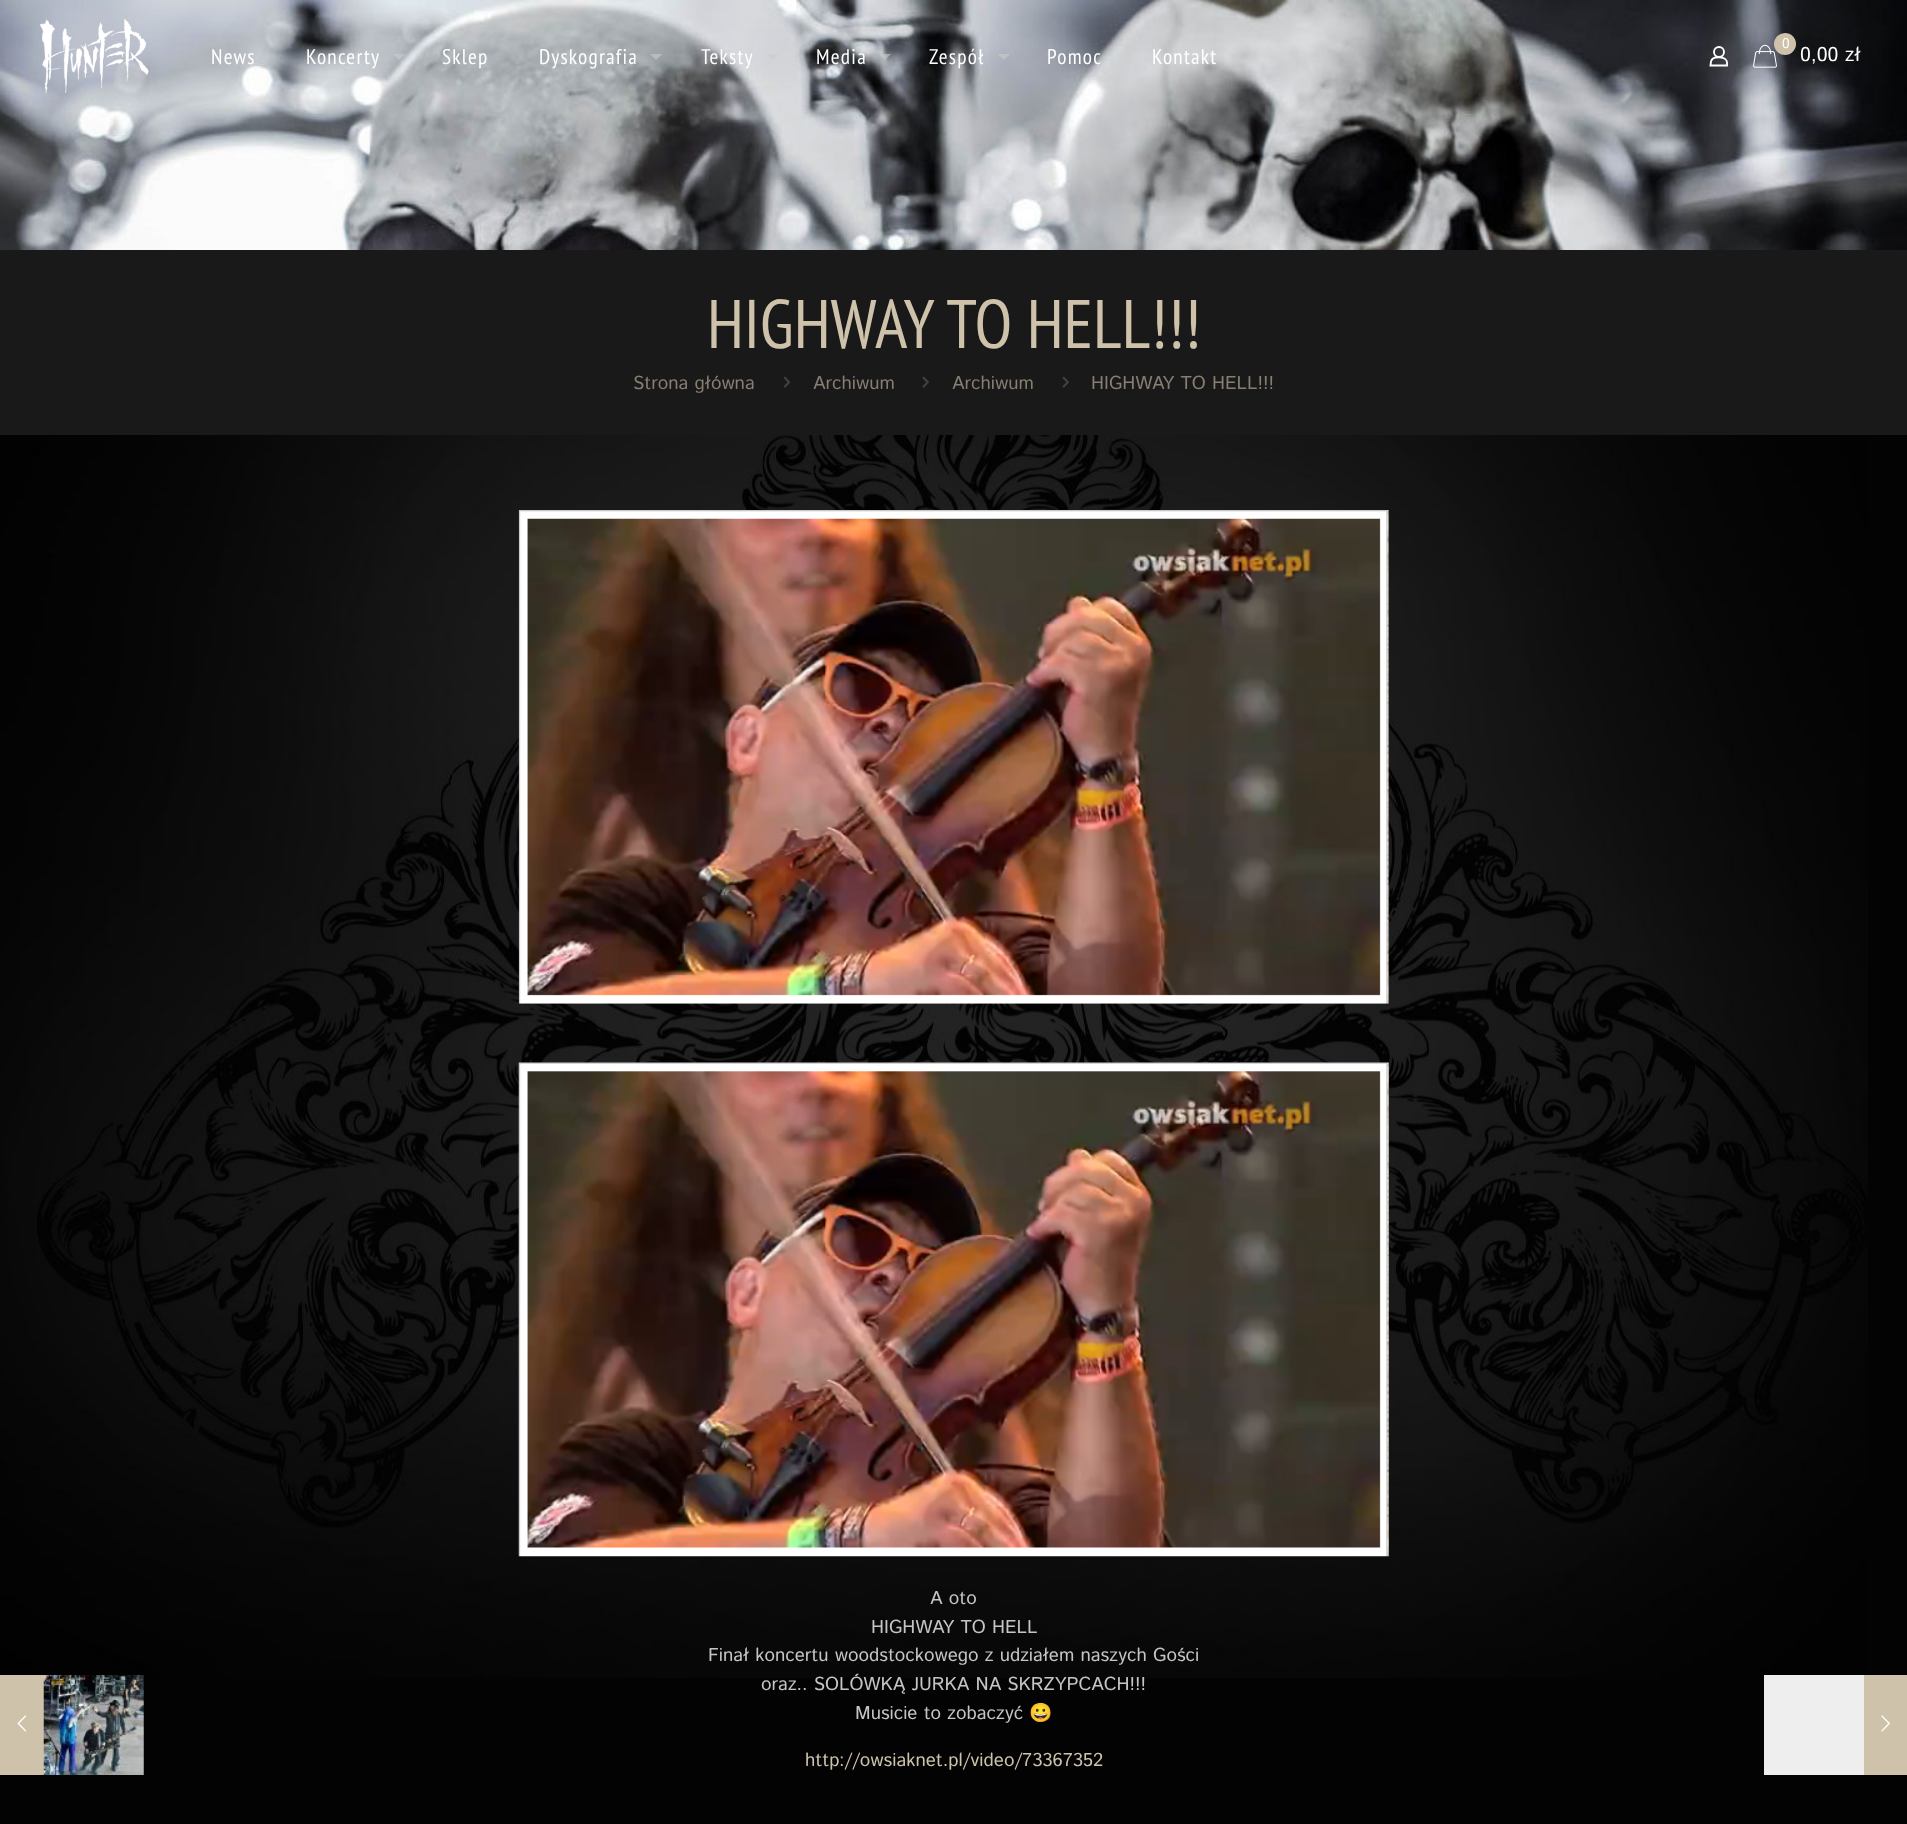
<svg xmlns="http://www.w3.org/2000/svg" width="1907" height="1824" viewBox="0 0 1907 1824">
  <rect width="100%" height="100%" fill="#030303"/>
  <image x="0" y="435" width="1868" height="1243" href="img1.png"/>
  <rect x="0" y="1675" width="44" height="100" fill="#cec2ab"/>
  <image x="17" y="1715" width="10" height="17" href="img2.png"/>
  <image x="43" y="1675" width="101" height="100" href="img3.png"/>
  <image x="0" y="0" width="1907" height="250" href="img4.png"/>
  <image x="40" y="18" width="109" height="76" href="img5.png"/>
  <text x="211" y="64" font-family="PT Sans Narrow" font-size="21.25" letter-spacing="1.25" fill="#ffffff">News</text>
  <text x="306" y="64" font-family="PT Sans Narrow" font-size="21.25" letter-spacing="1.25" fill="#ffffff">Koncerty</text>
  <path d="M392.5 54H405L399 60Z" fill="#cccccc" fill-opacity="0.6"/>
  <text x="442" y="64" font-family="PT Sans Narrow" font-size="21.25" letter-spacing="1.25" fill="#ffffff">Sklep</text>
  <text x="539" y="64" font-family="PT Sans Narrow" font-size="21.25" letter-spacing="1.25" fill="#ffffff">Dyskografia</text>
  <path d="M650 54H662.5L656 60Z" fill="#cccccc" fill-opacity="0.6"/>
  <text x="701" y="64" font-family="PT Sans Narrow" font-size="21.25" letter-spacing="1.25" fill="#ffffff">Teksty</text>
  <path d="M766 54H779L772.5 60Z" fill="#cccccc" fill-opacity="0.6"/>
  <text x="816" y="64" font-family="PT Sans Narrow" font-size="21.25" letter-spacing="1.25" fill="#ffffff">Media</text>
  <path d="M879 54H891L885 60Z" fill="#cccccc" fill-opacity="0.6"/>
  <text x="929" y="64" font-family="PT Sans Narrow" font-size="21.25" letter-spacing="1.25" fill="#ffffff">Zespół</text>
  <path d="M997.5 54H1010L1004 60Z" fill="#cccccc" fill-opacity="0.6"/>
  <text x="1047" y="64" font-family="PT Sans Narrow" font-size="21.25" letter-spacing="1.25" fill="#ffffff">Pomoc</text>
  <text x="1152" y="64" font-family="PT Sans Narrow" font-size="21.25" letter-spacing="1.25" fill="#ffffff">Kontakt</text>
  <path d="M1230 54H1242.5L1236 60Z" fill="#cccccc" fill-opacity="0.6"/>
  <circle cx="1719" cy="52" r="5" fill="none" stroke="#ffffff" stroke-width="1.9"/>
  <path d="M1727 62.5V65.5H1710.5L1711 61.5C1712.5 55.5 1727 56 1727 62.5Z" fill="none" stroke="#ffffff" stroke-width="1.9"/>
  <image x="1753" y="44" width="24" height="24" href="img6.png"/>
  <circle cx="1785" cy="44" r="11" fill="#cec2ab"/>
  <text x="1782" y="48" font-family="Istok Web" font-size="14" fill="#ffffff">0</text>
  <text x="1800" y="61" font-family="Istok Web" font-size="20" fill="#ffffff">0,00 zł</text>
  <rect x="0" y="250" width="1907" height="185" fill="#191919"/>
  <text x="707" y="348" font-family="PT Sans Narrow" font-size="68.75" fill="#cec2ab">HIGHWAY TO HELL!!!</text>
  <text x="633" y="389" font-family="Istok Web" font-size="18.75" fill="#867e71">Strona główna</text>
  <image x="783" y="376" width="7" height="12" href="img7.png"/>
  <text x="813" y="389" font-family="Istok Web" font-size="18.75" fill="#867e71">Archiwum</text>
  <image x="922" y="376" width="7" height="12" href="img8.png"/>
  <text x="952" y="389" font-family="Istok Web" font-size="18.75" fill="#867e71">Archiwum</text>
  <image x="1062" y="376" width="7" height="12" href="img8.png"/>
  <text x="1091" y="389" font-family="Istok Web" font-size="18.75" fill="#867e71">HIGHWAY TO HELL!!!</text>
  <image x="518" y="510" width="871" height="494" href="img9.png"/>
  <image x="518" y="1062" width="871" height="495" href="img10.png"/>
  <text x="930" y="1604" font-family="Istok Web" font-size="18.75" fill="#c5c5c5">A oto</text>
  <text x="871" y="1633" font-family="Istok Web" font-size="18.75" fill="#c5c5c5">HIGHWAY TO HELL</text>
  <text x="708" y="1661" font-family="Istok Web" font-size="18.75" fill="#c5c5c5">Finał koncertu woodstockowego z udziałem naszych Gości</text>
  <text x="761" y="1690" font-family="Istok Web" font-size="18.75" fill="#c5c5c5">oraz.. SOLÓWKĄ JURKA NA SKRZYPCACH!!!</text>
  <text x="855" y="1719" font-family="Istok Web" font-size="18.75" fill="#c5c5c5">Musicie to zobaczyć</text>
  <text x="1029" y="1719" font-family="Noto Color Emoji" font-size="18.75" fill="#c5c5c5">😀</text>
  <text x="805" y="1766" font-family="Istok Web" font-size="18.75" fill="#cec2ab">http://owsiaknet.pl/video/73367352</text>
  <rect x="1764" y="1675" width="100" height="100" fill="#eeeeee"/>
  <rect x="1864" y="1675" width="43" height="100" fill="#cec2ab"/>
  <image x="1881" y="1715" width="9" height="17" href="img11.png"/>
</svg>
